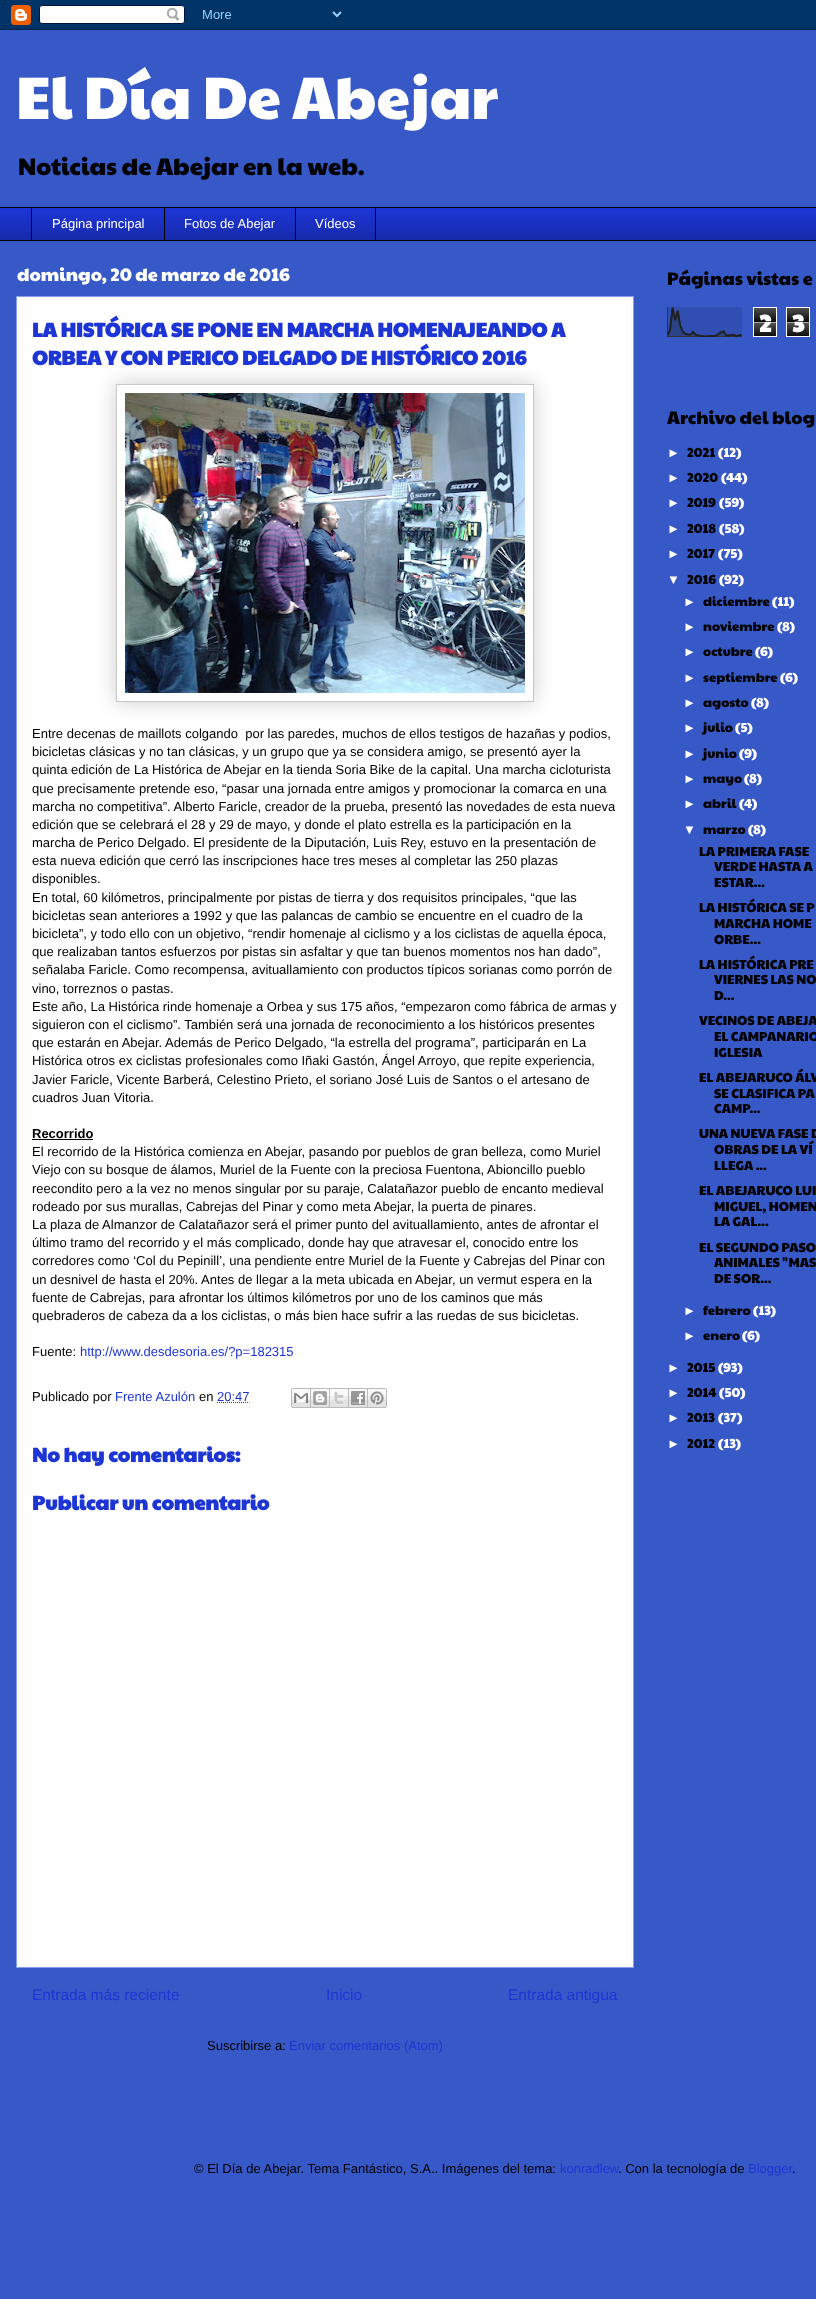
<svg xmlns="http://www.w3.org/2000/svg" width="816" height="2299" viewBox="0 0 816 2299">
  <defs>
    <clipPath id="clip1"><path d="M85 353H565V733H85ZM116 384H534V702H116Z" clip-rule="evenodd"/></clipPath>
    <filter id="blur1" x="-50%" y="-200%" width="200%" height="500%"><feGaussianBlur stdDeviation="10"/></filter>
  </defs>
  <rect width="100%" height="100%" fill="#3759c7"/>
  <image x="0" y="0" width="816" height="30" href="img1.png"/>
  <text x="16" y="119" font-family="Paytone One" font-size="60" fill="#ffffff">El Día De Abejar</text>
  <text x="18" y="175" font-family="Paytone One" font-size="24" fill="#000000">Noticias de Abejar en la web.</text>
  <rect x="0" y="208" width="816" height="32" fill="#1d35d5"/>
  <image x="0" y="213" width="816" height="27" href="img2.png"/>
  <rect x="0" y="207" width="816" height="1" fill="#000000"/>
  <rect x="31" y="207" width="1" height="34" fill="#000000"/>
  <text x="52" y="228" font-family="Liberation Sans" font-size="13" fill="#ffffff">Página principal</text>
  <rect x="164" y="207" width="1" height="34" fill="#000000"/>
  <text x="184" y="228" font-family="Liberation Sans" font-size="13" fill="#ffffff">Fotos de Abejar</text>
  <rect x="295.5" y="207.5" width="80" height="33" fill="none" stroke="#000000"/>
  <text x="315" y="228" font-family="Liberation Sans" font-size="13" fill="#ffffff">Vídeos</text>
  <rect x="0" y="240" width="816" height="1" fill="#000000"/>
  <rect x="16.5" y="296.5" width="617" height="1671" fill="#ffffff" stroke="#829df4"/>
  <text x="17" y="281" font-family="Paytone One" font-size="18" fill="#ffffff">domingo, 20 de marzo de 2016</text>
  <text x="32" y="337" font-family="Paytone One" font-size="20" font-weight="bold" fill="#1d35d5">LA HISTÓRICA SE PONE EN MARCHA HOMENAJEANDO A</text>
  <text x="32" y="365" font-family="Paytone One" font-size="20" font-weight="bold" fill="#1d35d5">ORBEA Y CON PERICO DELGADO DE HISTÓRICO 2016</text>
  <g clip-path="url(#clip1)">
    <rect x="116" y="384" width="418" height="318" fill="#000000" fill-opacity="0.2" filter="url(#blur1)"/>
  </g>
  <rect x="116.5" y="384.5" width="417" height="317" fill="none" stroke="#c7c7c7"/>
  <image x="125" y="393" width="400" height="300" href="img3.png"/>
  <text x="32" y="738" font-family="Liberation Sans" font-size="13" fill="#000000" xml:space="preserve">Entre decenas de maillots colgando  por las paredes, muchos de ellos testigos de hazañas y podios,</text>
  <text x="32" y="756" font-family="Liberation Sans" font-size="13" fill="#000000">bicicletas clásicas y no tan clásicas, y un grupo que ya se considera amigo, se presentó ayer la</text>
  <text x="32" y="774" font-family="Liberation Sans" font-size="13" fill="#000000">quinta edición de La Histórica de Abejar en la tienda Soria Bike de la capital. Una marcha cicloturista</text>
  <text x="32" y="793" font-family="Liberation Sans" font-size="13" fill="#000000">que precisamente pretende eso, “pasar una jornada entre amigos y promocionar la comarca en una</text>
  <text x="32" y="811" font-family="Liberation Sans" font-size="13" fill="#000000">marcha no competitiva”. Alberto Faricle, creador de la prueba, presentó las novedades de esta nueva</text>
  <text x="32" y="829" font-family="Liberation Sans" font-size="13" fill="#000000">edición que se celebrará el 28 y 29 de mayo, y donde el plato estrella es la participación en la</text>
  <text x="32" y="847" font-family="Liberation Sans" font-size="13" fill="#000000">marcha de Perico Delgado. El presidente de la Diputación, Luis Rey, estuvo en la presentación de</text>
  <text x="32" y="865" font-family="Liberation Sans" font-size="13" fill="#000000">esta nueva edición que cerró las inscripciones hace tres meses al completar las 250 plazas</text>
  <text x="32" y="883" font-family="Liberation Sans" font-size="13" fill="#000000">disponibles.</text>
  <text x="32" y="902" font-family="Liberation Sans" font-size="13" fill="#000000">En total, 60 kilómetros, principalmente por pistas de tierra y dos requisitos principales, “que las</text>
  <text x="32" y="920" font-family="Liberation Sans" font-size="13" fill="#000000">bicicletas sean anteriores a 1992 y que las palancas de cambio se encuentre en el cuadro de la</text>
  <text x="32" y="938" font-family="Liberation Sans" font-size="13" fill="#000000">bicicleta”, y todo ello con un objetivo, “rendir homenaje al ciclismo y a los ciclistas de aquella época,</text>
  <text x="32" y="956" font-family="Liberation Sans" font-size="13" fill="#000000">que realizaban tantos esfuerzos por pistas sin asfaltar y que tan buenos momentos nos han dado”,</text>
  <text x="32" y="974" font-family="Liberation Sans" font-size="13" fill="#000000">señalaba Faricle. Como recompensa, avituallamiento con productos típicos sorianas como porrón de</text>
  <text x="32" y="993" font-family="Liberation Sans" font-size="13" fill="#000000">vino, torreznos o pastas.</text>
  <text x="32" y="1011" font-family="Liberation Sans" font-size="13" fill="#000000">Este año, La Histórica rinde homenaje a Orbea y sus 175 años, “empezaron como fábrica de armas y</text>
  <text x="32" y="1029" font-family="Liberation Sans" font-size="13" fill="#000000">siguieron con el ciclismo”. También será una jornada de reconocimiento a los históricos presentes</text>
  <text x="32" y="1047" font-family="Liberation Sans" font-size="13" fill="#000000">que estarán en Abejar. Además de Perico Delgado, “la estrella del programa”, participarán en La</text>
  <text x="32" y="1065" font-family="Liberation Sans" font-size="13" fill="#000000">Histórica otros ex ciclistas profesionales como Iñaki Gastón, Ángel Arroyo, que repite experiencia,</text>
  <text x="32" y="1084" font-family="Liberation Sans" font-size="13" fill="#000000">Javier Faricle, Vicente Barberá, Celestino Prieto, el soriano José Luis de Santos o el artesano de</text>
  <text x="32" y="1102" font-family="Liberation Sans" font-size="13" fill="#000000">cuadros Juan Vitoria.</text>
  <text x="32" y="1138" font-family="Liberation Sans" font-size="13" font-weight="bold" fill="#000000">Recorrido</text>
  <rect x="32" y="1139" width="61" height="1" fill="#000000"/>
  <text x="32" y="1156" font-family="Liberation Sans" font-size="13" fill="#000000">El recorrido de la Histórica comienza en Abejar, pasando por pueblos de gran belleza, como Muriel</text>
  <text x="32" y="1174" font-family="Liberation Sans" font-size="13" fill="#000000">Viejo con su bosque de álamos, Muriel de la Fuente con la preciosa Fuentona, Abioncillo pueblo</text>
  <text x="32" y="1193" font-family="Liberation Sans" font-size="13" fill="#000000">reecondito pero a la vez no menos singular por su paraje, Calatañazor pueblo de encanto medieval</text>
  <text x="32" y="1211" font-family="Liberation Sans" font-size="13" fill="#000000">rodeado por sus murallas, Cabrejas del Pinar y como meta Abejar, la puerta de pinares.</text>
  <text x="32" y="1229" font-family="Liberation Sans" font-size="13" fill="#000000">La plaza de Almanzor de Calatañazor será el primer punto del avituallamiento, antes de afrontar el</text>
  <text x="32" y="1247" font-family="Liberation Sans" font-size="13" fill="#000000">último tramo del recorrido y el más complicado, donde hay que atravesar el, conocido entre los</text>
  <text x="32" y="1265" font-family="Liberation Sans" font-size="13" fill="#000000">corredores como ‘Col du Pepinill’, una pendiente entre Muriel de la Fuente y Cabrejas del Pinar con</text>
  <text x="32" y="1284" font-family="Liberation Sans" font-size="13" fill="#000000">un desnivel de hasta el 20%. Antes de llegar a la meta ubicada en Abejar, un vermut espera en la</text>
  <text x="32" y="1302" font-family="Liberation Sans" font-size="13" fill="#000000">fuente de Cabrejas, para afrontar los últimos kilómetros por uno de los caminos que más</text>
  <text x="32" y="1320" font-family="Liberation Sans" font-size="13" fill="#000000">quebraderos de cabeza da a los ciclistas, o más bien hace sufrir a las ruedas de sus bicicletas.</text>
  <text x="32" y="1356" font-family="Liberation Sans" font-size="13" fill="#000000">Fuente:</text>
  <text x="80" y="1356" font-family="Liberation Sans" font-size="13" fill="#1d35d5">http://www.desdesoria.es/?p=182315</text>
  <text x="32" y="1401" font-family="Liberation Sans" font-size="13" fill="#000000">Publicado por</text>
  <text x="115" y="1401" font-family="Liberation Sans" font-size="13" fill="#1d35d5">Frente Azulón</text>
  <text x="199" y="1401" font-family="Liberation Sans" font-size="13" fill="#000000">en</text>
  <text x="217" y="1401" font-family="Liberation Sans" font-size="13" fill="#1d35d5">20:47</text>
  <path d="M217 1402.5H249.5" fill="none" stroke="#1d35d5" stroke-dasharray="1 1"/>
  <image x="291" y="1388" width="20" height="20" href="img4.png"/>
  <image x="311" y="1388" width="19" height="20" href="img5.png"/>
  <image x="330" y="1388" width="19" height="20" href="img6.png"/>
  <image x="349" y="1388" width="19" height="20" href="img7.png"/>
  <image x="368" y="1388" width="19" height="20" href="img8.png"/>
  <text x="32" y="1462" font-family="Paytone One" font-size="20" font-weight="bold" fill="#1d35d5">No hay comentarios:</text>
  <text x="32" y="1510" font-family="Paytone One" font-size="20" font-weight="bold" fill="#1d35d5">Publicar un comentario</text>
  <text x="32" y="2000" font-family="Liberation Sans" font-size="15.5" fill="#1d35d5">Entrada más reciente</text>
  <text x="326" y="2000" font-family="Liberation Sans" font-size="15.5" fill="#1d35d5">Inicio</text>
  <text x="508" y="2000" font-family="Liberation Sans" font-size="15.5" fill="#1d35d5">Entrada antigua</text>
  <text x="207" y="2050" font-family="Liberation Sans" font-size="13" fill="#000000">Suscribirse a:</text>
  <text x="289" y="2050" font-family="Liberation Sans" font-size="13" fill="#1d35d5">Enviar comentarios (Atom)</text>
  <text x="667" y="285" font-family="Paytone One" font-size="18" fill="#000000">Páginas vistas e</text>
  <image x="667" y="307" width="75" height="30" href="img9.png"/>
  <image x="754" y="308" width="22" height="28" href="img10.png"/>
  <rect x="753.5" y="307.5" width="23" height="29" fill="none" stroke="#ffffff"/>
  <text x="759" y="332" font-family="Paytone One" font-size="24" font-weight="bold" fill="#ffffff">2</text>
  <rect x="754" y="321" width="22" height="1" fill="#000000" fill-opacity="0.65"/>
  <rect x="754" y="322" width="22" height="1" fill="#ffffff" fill-opacity="0.65"/>
  <image x="787" y="308" width="22" height="28" href="img10.png"/>
  <rect x="786.5" y="307.5" width="23" height="29" fill="none" stroke="#ffffff"/>
  <text x="792" y="332" font-family="Paytone One" font-size="24" font-weight="bold" fill="#ffffff">3</text>
  <rect x="787" y="321" width="22" height="1" fill="#000000" fill-opacity="0.65"/>
  <rect x="787" y="322" width="22" height="1" fill="#ffffff" fill-opacity="0.65"/>
  <text x="667" y="424" font-family="Paytone One" font-size="18" fill="#000000">Archivo del blog</text>
  <text x="667" y="457" font-family="Liberation Sans" font-size="13" fill="#ffffff">►</text>
  <text x="687" y="457" font-family="Paytone One" font-size="13" fill="#000000">2021</text>
  <text x="718" y="457" font-family="Paytone One" font-size="13" fill="#ffffff">(12)</text>
  <text x="667" y="482" font-family="Liberation Sans" font-size="13" fill="#ffffff">►</text>
  <text x="687" y="482" font-family="Paytone One" font-size="13" fill="#000000">2020</text>
  <text x="721" y="482" font-family="Paytone One" font-size="13" fill="#ffffff">(44)</text>
  <text x="667" y="507" font-family="Liberation Sans" font-size="13" fill="#ffffff">►</text>
  <text x="687" y="507" font-family="Paytone One" font-size="13" fill="#000000">2019</text>
  <text x="719" y="507" font-family="Paytone One" font-size="13" fill="#ffffff">(59)</text>
  <text x="667" y="533" font-family="Liberation Sans" font-size="13" fill="#ffffff">►</text>
  <text x="687" y="533" font-family="Paytone One" font-size="13" fill="#000000">2018</text>
  <text x="719" y="533" font-family="Paytone One" font-size="13" fill="#ffffff">(58)</text>
  <text x="667" y="558" font-family="Liberation Sans" font-size="13" fill="#ffffff">►</text>
  <text x="687" y="558" font-family="Paytone One" font-size="13" fill="#000000">2017</text>
  <text x="718" y="558" font-family="Paytone One" font-size="13" fill="#ffffff">(75)</text>
  <text x="667" y="584" font-family="Liberation Sans" font-size="13" fill="#ffffff">▼</text>
  <text x="687" y="584" font-family="Paytone One" font-size="13" fill="#000000">2016</text>
  <text x="719" y="584" font-family="Paytone One" font-size="13" fill="#ffffff">(92)</text>
  <text x="683" y="606" font-family="Liberation Sans" font-size="13" fill="#ffffff">►</text>
  <text x="703" y="606" font-family="Paytone One" font-size="13" fill="#000000">diciembre</text>
  <text x="772" y="606" font-family="Paytone One" font-size="13" fill="#ffffff">(11)</text>
  <text x="683" y="631" font-family="Liberation Sans" font-size="13" fill="#ffffff">►</text>
  <text x="703" y="631" font-family="Paytone One" font-size="13" fill="#000000">noviembre</text>
  <text x="777" y="631" font-family="Paytone One" font-size="13" fill="#ffffff">(8)</text>
  <text x="683" y="656" font-family="Liberation Sans" font-size="13" fill="#ffffff">►</text>
  <text x="703" y="656" font-family="Paytone One" font-size="13" fill="#000000">octubre</text>
  <text x="755" y="656" font-family="Paytone One" font-size="13" fill="#ffffff">(6)</text>
  <text x="683" y="682" font-family="Liberation Sans" font-size="13" fill="#ffffff">►</text>
  <text x="703" y="682" font-family="Paytone One" font-size="13" fill="#000000">septiembre</text>
  <text x="780" y="682" font-family="Paytone One" font-size="13" fill="#ffffff">(6)</text>
  <text x="683" y="707" font-family="Liberation Sans" font-size="13" fill="#ffffff">►</text>
  <text x="703" y="707" font-family="Paytone One" font-size="13" fill="#000000">agosto</text>
  <text x="751" y="707" font-family="Paytone One" font-size="13" fill="#ffffff">(8)</text>
  <text x="683" y="732" font-family="Liberation Sans" font-size="13" fill="#ffffff">►</text>
  <text x="703" y="732" font-family="Paytone One" font-size="13" fill="#000000">julio</text>
  <text x="735" y="732" font-family="Paytone One" font-size="13" fill="#ffffff">(5)</text>
  <text x="683" y="758" font-family="Liberation Sans" font-size="13" fill="#ffffff">►</text>
  <text x="703" y="758" font-family="Paytone One" font-size="13" fill="#000000">junio</text>
  <text x="739" y="758" font-family="Paytone One" font-size="13" fill="#ffffff">(9)</text>
  <text x="683" y="783" font-family="Liberation Sans" font-size="13" fill="#ffffff">►</text>
  <text x="703" y="783" font-family="Paytone One" font-size="13" fill="#000000">mayo</text>
  <text x="744" y="783" font-family="Paytone One" font-size="13" fill="#ffffff">(8)</text>
  <text x="683" y="808" font-family="Liberation Sans" font-size="13" fill="#ffffff">►</text>
  <text x="703" y="808" font-family="Paytone One" font-size="13" fill="#000000">abril</text>
  <text x="739" y="808" font-family="Paytone One" font-size="13" fill="#ffffff">(4)</text>
  <text x="683" y="834" font-family="Liberation Sans" font-size="13" fill="#ffffff">▼</text>
  <text x="703" y="834" font-family="Paytone One" font-size="13" fill="#000000">marzo</text>
  <text x="748" y="834" font-family="Paytone One" font-size="13" fill="#ffffff">(8)</text>
  <text x="699" y="856" font-family="Paytone One" font-size="13" fill="#000000">LA PRIMERA FASE</text>
  <text x="714" y="871" font-family="Paytone One" font-size="13" fill="#000000">VERDE HASTA A</text>
  <text x="714" y="887" font-family="Paytone One" font-size="13" fill="#000000">ESTAR...</text>
  <text x="699" y="912" font-family="Paytone One" font-size="13" fill="#000000">LA HISTÓRICA SE P</text>
  <text x="714" y="928" font-family="Paytone One" font-size="13" fill="#000000">MARCHA HOME</text>
  <text x="714" y="944" font-family="Paytone One" font-size="13" fill="#000000">ORBE...</text>
  <text x="699" y="969" font-family="Paytone One" font-size="13" fill="#000000">LA HISTÓRICA PRE</text>
  <text x="714" y="984" font-family="Paytone One" font-size="13" fill="#000000">VIERNES LAS NO</text>
  <text x="714" y="1000" font-family="Paytone One" font-size="13" fill="#000000">D...</text>
  <text x="699" y="1025" font-family="Paytone One" font-size="13" fill="#000000">VECINOS DE ABEJA</text>
  <text x="714" y="1041" font-family="Paytone One" font-size="13" fill="#000000">EL CAMPANARIO</text>
  <text x="714" y="1057" font-family="Paytone One" font-size="13" fill="#000000">IGLESIA</text>
  <text x="699" y="1082" font-family="Paytone One" font-size="13" fill="#000000">EL ABEJARUCO ÁLV</text>
  <text x="714" y="1098" font-family="Paytone One" font-size="13" fill="#000000">SE CLASIFICA PA</text>
  <text x="714" y="1113" font-family="Paytone One" font-size="13" fill="#000000">CAMP...</text>
  <text x="699" y="1138" font-family="Paytone One" font-size="13" fill="#000000">UNA NUEVA FASE D</text>
  <text x="714" y="1154" font-family="Paytone One" font-size="13" fill="#000000">OBRAS DE LA VÍ</text>
  <text x="714" y="1170" font-family="Paytone One" font-size="13" fill="#000000">LLEGA ...</text>
  <text x="699" y="1195" font-family="Paytone One" font-size="13" fill="#000000">EL ABEJARUCO LUI</text>
  <text x="714" y="1211" font-family="Paytone One" font-size="13" fill="#000000">MIGUEL, HOMEN</text>
  <text x="714" y="1226" font-family="Paytone One" font-size="13" fill="#000000">LA GAL...</text>
  <text x="699" y="1252" font-family="Paytone One" font-size="13" fill="#000000">EL SEGUNDO PASO</text>
  <text x="714" y="1267" font-family="Paytone One" font-size="13" fill="#000000">ANIMALES "MAS</text>
  <text x="714" y="1283" font-family="Paytone One" font-size="13" fill="#000000">DE SOR...</text>
  <text x="683" y="1315" font-family="Liberation Sans" font-size="13" fill="#ffffff">►</text>
  <text x="703" y="1315" font-family="Paytone One" font-size="13" fill="#000000">febrero</text>
  <text x="753" y="1315" font-family="Paytone One" font-size="13" fill="#ffffff">(13)</text>
  <text x="683" y="1340" font-family="Liberation Sans" font-size="13" fill="#ffffff">►</text>
  <text x="703" y="1340" font-family="Paytone One" font-size="13" fill="#000000">enero</text>
  <text x="742" y="1340" font-family="Paytone One" font-size="13" fill="#ffffff">(6)</text>
  <text x="667" y="1372" font-family="Liberation Sans" font-size="13" fill="#ffffff">►</text>
  <text x="687" y="1372" font-family="Paytone One" font-size="13" fill="#000000">2015</text>
  <text x="718" y="1372" font-family="Paytone One" font-size="13" fill="#ffffff">(93)</text>
  <text x="667" y="1397" font-family="Liberation Sans" font-size="13" fill="#ffffff">►</text>
  <text x="687" y="1397" font-family="Paytone One" font-size="13" fill="#000000">2014</text>
  <text x="719" y="1397" font-family="Paytone One" font-size="13" fill="#ffffff">(50)</text>
  <text x="667" y="1422" font-family="Liberation Sans" font-size="13" fill="#ffffff">►</text>
  <text x="687" y="1422" font-family="Paytone One" font-size="13" fill="#000000">2013</text>
  <text x="718" y="1422" font-family="Paytone One" font-size="13" fill="#ffffff">(37)</text>
  <text x="667" y="1448" font-family="Liberation Sans" font-size="13" fill="#ffffff">►</text>
  <text x="687" y="1448" font-family="Paytone One" font-size="13" fill="#000000">2012</text>
  <text x="718" y="1448" font-family="Paytone One" font-size="13" fill="#ffffff">(13)</text>
  <text x="194" y="2173" font-family="Liberation Sans" font-size="13" fill="#000000">© El Día de Abejar. Tema Fantástico, S.A.. Imágenes del tema:</text>
  <text x="560" y="2173" font-family="Liberation Sans" font-size="13" fill="#1d35d5">konradlew</text>
  <text x="618" y="2173" font-family="Liberation Sans" font-size="13" fill="#000000">. Con la tecnología de</text>
  <text x="748" y="2173" font-family="Liberation Sans" font-size="13" fill="#1d35d5">Blogger</text>
  <text x="792" y="2173" font-family="Liberation Sans" font-size="13" fill="#000000">.</text>
</svg>
